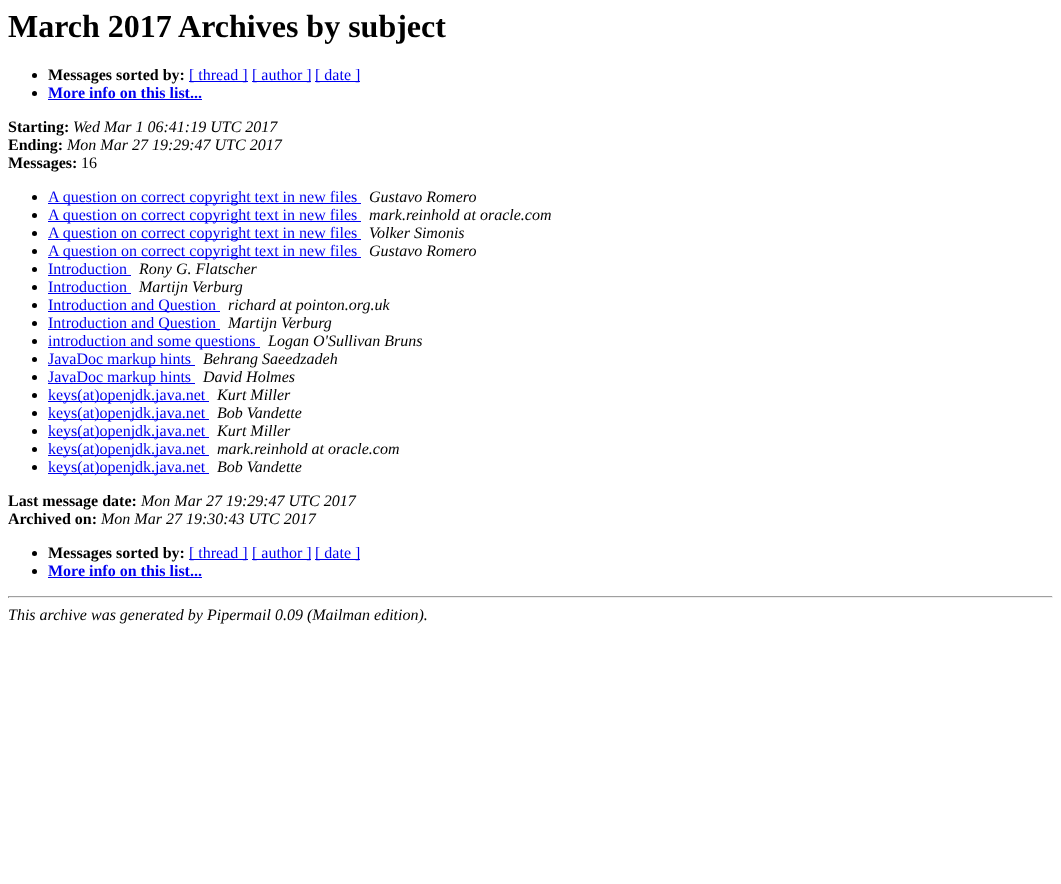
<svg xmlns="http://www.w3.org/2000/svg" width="1061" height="884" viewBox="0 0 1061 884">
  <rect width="100%" height="100%" fill="#ffffff"/>
  <text x="8" y="37" font-family="Liberation Serif" font-size="32" font-weight="bold" fill="#000000">March 2017 Archives by subject</text>
  <circle cx="34.5" cy="75.5" r="2.5" fill="#000000"/>
  <text x="48" y="80" font-family="Liberation Serif" font-size="16" font-weight="bold" fill="#000000">Messages sorted by:</text>
  <rect x="189" y="81" width="59" height="1" fill="#0000ee"/>
  <text x="189" y="80" font-family="Liberation Serif" font-size="16" fill="#0000ee">[ thread ]</text>
  <rect x="252" y="81" width="59" height="1" fill="#0000ee"/>
  <text x="252" y="80" font-family="Liberation Serif" font-size="16" fill="#0000ee">[ author ]</text>
  <rect x="315" y="81" width="45" height="1" fill="#0000ee"/>
  <text x="315" y="80" font-family="Liberation Serif" font-size="16" fill="#0000ee">[ date ]</text>
  <circle cx="34.5" cy="93.5" r="2.5" fill="#000000"/>
  <text x="48" y="98" font-family="Liberation Serif" font-size="16" font-weight="bold" fill="#0000ee">More info on this list...</text>
  <rect x="48" y="99" width="154" height="1" fill="#0000ee"/>
  <text x="8" y="132" font-family="Liberation Serif" font-size="16" font-weight="bold" fill="#000000">Starting:</text>
  <text x="73" y="132" font-family="Liberation Serif" font-size="16" font-style="italic" fill="#000000">Wed Mar 1 06:41:19 UTC 2017</text>
  <text x="8" y="150" font-family="Liberation Serif" font-size="16" font-weight="bold" fill="#000000">Ending:</text>
  <text x="67" y="150" font-family="Liberation Serif" font-size="16" font-style="italic" fill="#000000">Mon Mar 27 19:29:47 UTC 2017</text>
  <text x="8" y="168" font-family="Liberation Serif" font-size="16" font-weight="bold" fill="#000000">Messages:</text>
  <text x="81" y="168" font-family="Liberation Serif" font-size="16" fill="#000000">16</text>
  <circle cx="34.5" cy="197.5" r="2.5" fill="#000000"/>
  <rect x="48" y="203" width="313" height="1" fill="#0000ee"/>
  <text x="48" y="202" font-family="Liberation Serif" font-size="16" fill="#0000ee">A question on correct copyright text in new files</text>
  <text x="369" y="202" font-family="Liberation Serif" font-size="16" font-style="italic" fill="#000000">Gustavo Romero</text>
  <circle cx="34.5" cy="215.5" r="2.5" fill="#000000"/>
  <rect x="48" y="221" width="313" height="1" fill="#0000ee"/>
  <text x="48" y="220" font-family="Liberation Serif" font-size="16" fill="#0000ee">A question on correct copyright text in new files</text>
  <text x="369" y="220" font-family="Liberation Serif" font-size="16" font-style="italic" fill="#000000">mark.reinhold at oracle.com</text>
  <circle cx="34.5" cy="233.5" r="2.5" fill="#000000"/>
  <rect x="48" y="239" width="313" height="1" fill="#0000ee"/>
  <text x="48" y="238" font-family="Liberation Serif" font-size="16" fill="#0000ee">A question on correct copyright text in new files</text>
  <text x="369" y="238" font-family="Liberation Serif" font-size="16" font-style="italic" fill="#000000">Volker Simonis</text>
  <circle cx="34.5" cy="251.5" r="2.5" fill="#000000"/>
  <rect x="48" y="257" width="313" height="1" fill="#0000ee"/>
  <text x="48" y="256" font-family="Liberation Serif" font-size="16" fill="#0000ee">A question on correct copyright text in new files</text>
  <text x="369" y="256" font-family="Liberation Serif" font-size="16" font-style="italic" fill="#000000">Gustavo Romero</text>
  <circle cx="34.5" cy="269.5" r="2.5" fill="#000000"/>
  <text x="48" y="274" font-family="Liberation Serif" font-size="16" fill="#0000ee">Introduction</text>
  <rect x="48" y="275" width="83" height="1" fill="#0000ee"/>
  <text x="139" y="274" font-family="Liberation Serif" font-size="16" font-style="italic" fill="#000000">Rony G. Flatscher</text>
  <circle cx="34.5" cy="287.5" r="2.5" fill="#000000"/>
  <text x="48" y="292" font-family="Liberation Serif" font-size="16" fill="#0000ee">Introduction</text>
  <rect x="48" y="293" width="83" height="1" fill="#0000ee"/>
  <text x="139" y="292" font-family="Liberation Serif" font-size="16" font-style="italic" fill="#000000">Martijn Verburg</text>
  <circle cx="34.5" cy="305.5" r="2.5" fill="#000000"/>
  <rect x="48" y="311" width="172" height="1" fill="#0000ee"/>
  <text x="48" y="310" font-family="Liberation Serif" font-size="16" fill="#0000ee">Introduction and Question</text>
  <text x="228" y="310" font-family="Liberation Serif" font-size="16" font-style="italic" fill="#000000">richard at pointon.org.uk</text>
  <circle cx="34.5" cy="323.5" r="2.5" fill="#000000"/>
  <rect x="48" y="329" width="172" height="1" fill="#0000ee"/>
  <text x="48" y="328" font-family="Liberation Serif" font-size="16" fill="#0000ee">Introduction and Question</text>
  <text x="228" y="328" font-family="Liberation Serif" font-size="16" font-style="italic" fill="#000000">Martijn Verburg</text>
  <circle cx="34.5" cy="341.5" r="2.5" fill="#000000"/>
  <rect x="48" y="347" width="212" height="1" fill="#0000ee"/>
  <text x="48" y="346" font-family="Liberation Serif" font-size="16" fill="#0000ee">introduction and some questions</text>
  <text x="268" y="346" font-family="Liberation Serif" font-size="16" font-style="italic" fill="#000000">Logan O'Sullivan Bruns</text>
  <circle cx="34.5" cy="359.5" r="2.5" fill="#000000"/>
  <rect x="48" y="365" width="147" height="1" fill="#0000ee"/>
  <text x="48" y="364" font-family="Liberation Serif" font-size="16" fill="#0000ee">JavaDoc markup hints</text>
  <text x="203" y="364" font-family="Liberation Serif" font-size="16" font-style="italic" fill="#000000">Behrang Saeedzadeh</text>
  <circle cx="34.5" cy="377.5" r="2.5" fill="#000000"/>
  <rect x="48" y="383" width="147" height="1" fill="#0000ee"/>
  <text x="48" y="382" font-family="Liberation Serif" font-size="16" fill="#0000ee">JavaDoc markup hints</text>
  <text x="203" y="382" font-family="Liberation Serif" font-size="16" font-style="italic" fill="#000000">David Holmes</text>
  <circle cx="34.5" cy="395.5" r="2.5" fill="#000000"/>
  <rect x="48" y="401" width="161" height="1" fill="#0000ee"/>
  <text x="48" y="400" font-family="Liberation Serif" font-size="16" fill="#0000ee">keys(at)openjdk.java.net</text>
  <text x="217" y="400" font-family="Liberation Serif" font-size="16" font-style="italic" fill="#000000">Kurt Miller</text>
  <circle cx="34.5" cy="413.5" r="2.5" fill="#000000"/>
  <rect x="48" y="419" width="161" height="1" fill="#0000ee"/>
  <text x="48" y="418" font-family="Liberation Serif" font-size="16" fill="#0000ee">keys(at)openjdk.java.net</text>
  <text x="217" y="418" font-family="Liberation Serif" font-size="16" font-style="italic" fill="#000000">Bob Vandette</text>
  <circle cx="34.5" cy="431.5" r="2.5" fill="#000000"/>
  <rect x="48" y="437" width="161" height="1" fill="#0000ee"/>
  <text x="48" y="436" font-family="Liberation Serif" font-size="16" fill="#0000ee">keys(at)openjdk.java.net</text>
  <text x="217" y="436" font-family="Liberation Serif" font-size="16" font-style="italic" fill="#000000">Kurt Miller</text>
  <circle cx="34.5" cy="449.5" r="2.5" fill="#000000"/>
  <rect x="48" y="455" width="161" height="1" fill="#0000ee"/>
  <text x="48" y="454" font-family="Liberation Serif" font-size="16" fill="#0000ee">keys(at)openjdk.java.net</text>
  <text x="217" y="454" font-family="Liberation Serif" font-size="16" font-style="italic" fill="#000000">mark.reinhold at oracle.com</text>
  <circle cx="34.5" cy="467.5" r="2.5" fill="#000000"/>
  <rect x="48" y="473" width="161" height="1" fill="#0000ee"/>
  <text x="48" y="472" font-family="Liberation Serif" font-size="16" fill="#0000ee">keys(at)openjdk.java.net</text>
  <text x="217" y="472" font-family="Liberation Serif" font-size="16" font-style="italic" fill="#000000">Bob Vandette</text>
  <text x="8" y="506" font-family="Liberation Serif" font-size="16" font-weight="bold" fill="#000000">Last message date:</text>
  <text x="141" y="506" font-family="Liberation Serif" font-size="16" font-style="italic" fill="#000000">Mon Mar 27 19:29:47 UTC 2017</text>
  <text x="8" y="524" font-family="Liberation Serif" font-size="16" font-weight="bold" fill="#000000">Archived on:</text>
  <text x="101" y="524" font-family="Liberation Serif" font-size="16" font-style="italic" fill="#000000">Mon Mar 27 19:30:43 UTC 2017</text>
  <circle cx="34.5" cy="553.5" r="2.5" fill="#000000"/>
  <text x="48" y="558" font-family="Liberation Serif" font-size="16" font-weight="bold" fill="#000000">Messages sorted by:</text>
  <rect x="189" y="559" width="59" height="1" fill="#0000ee"/>
  <text x="189" y="558" font-family="Liberation Serif" font-size="16" fill="#0000ee">[ thread ]</text>
  <rect x="252" y="559" width="59" height="1" fill="#0000ee"/>
  <text x="252" y="558" font-family="Liberation Serif" font-size="16" fill="#0000ee">[ author ]</text>
  <rect x="315" y="559" width="45" height="1" fill="#0000ee"/>
  <text x="315" y="558" font-family="Liberation Serif" font-size="16" fill="#0000ee">[ date ]</text>
  <circle cx="34.5" cy="571.5" r="2.5" fill="#000000"/>
  <text x="48" y="576" font-family="Liberation Serif" font-size="16" font-weight="bold" fill="#0000ee">More info on this list...</text>
  <rect x="48" y="577" width="154" height="1" fill="#0000ee"/>
  <rect x="8" y="596" width="1045" height="1" fill="#9f9f9f"/>
  <rect x="1052" y="596" width="1" height="2" fill="#eeeeee"/>
  <rect x="8" y="597" width="1045" height="1" fill="#eeeeee"/>
  <rect x="8" y="596" width="1" height="2" fill="#9f9f9f"/>
  <text x="8" y="620" font-family="Liberation Serif" font-size="16" font-style="italic" fill="#000000">This archive was generated by Pipermail 0.09 (Mailman edition).</text>
</svg>
